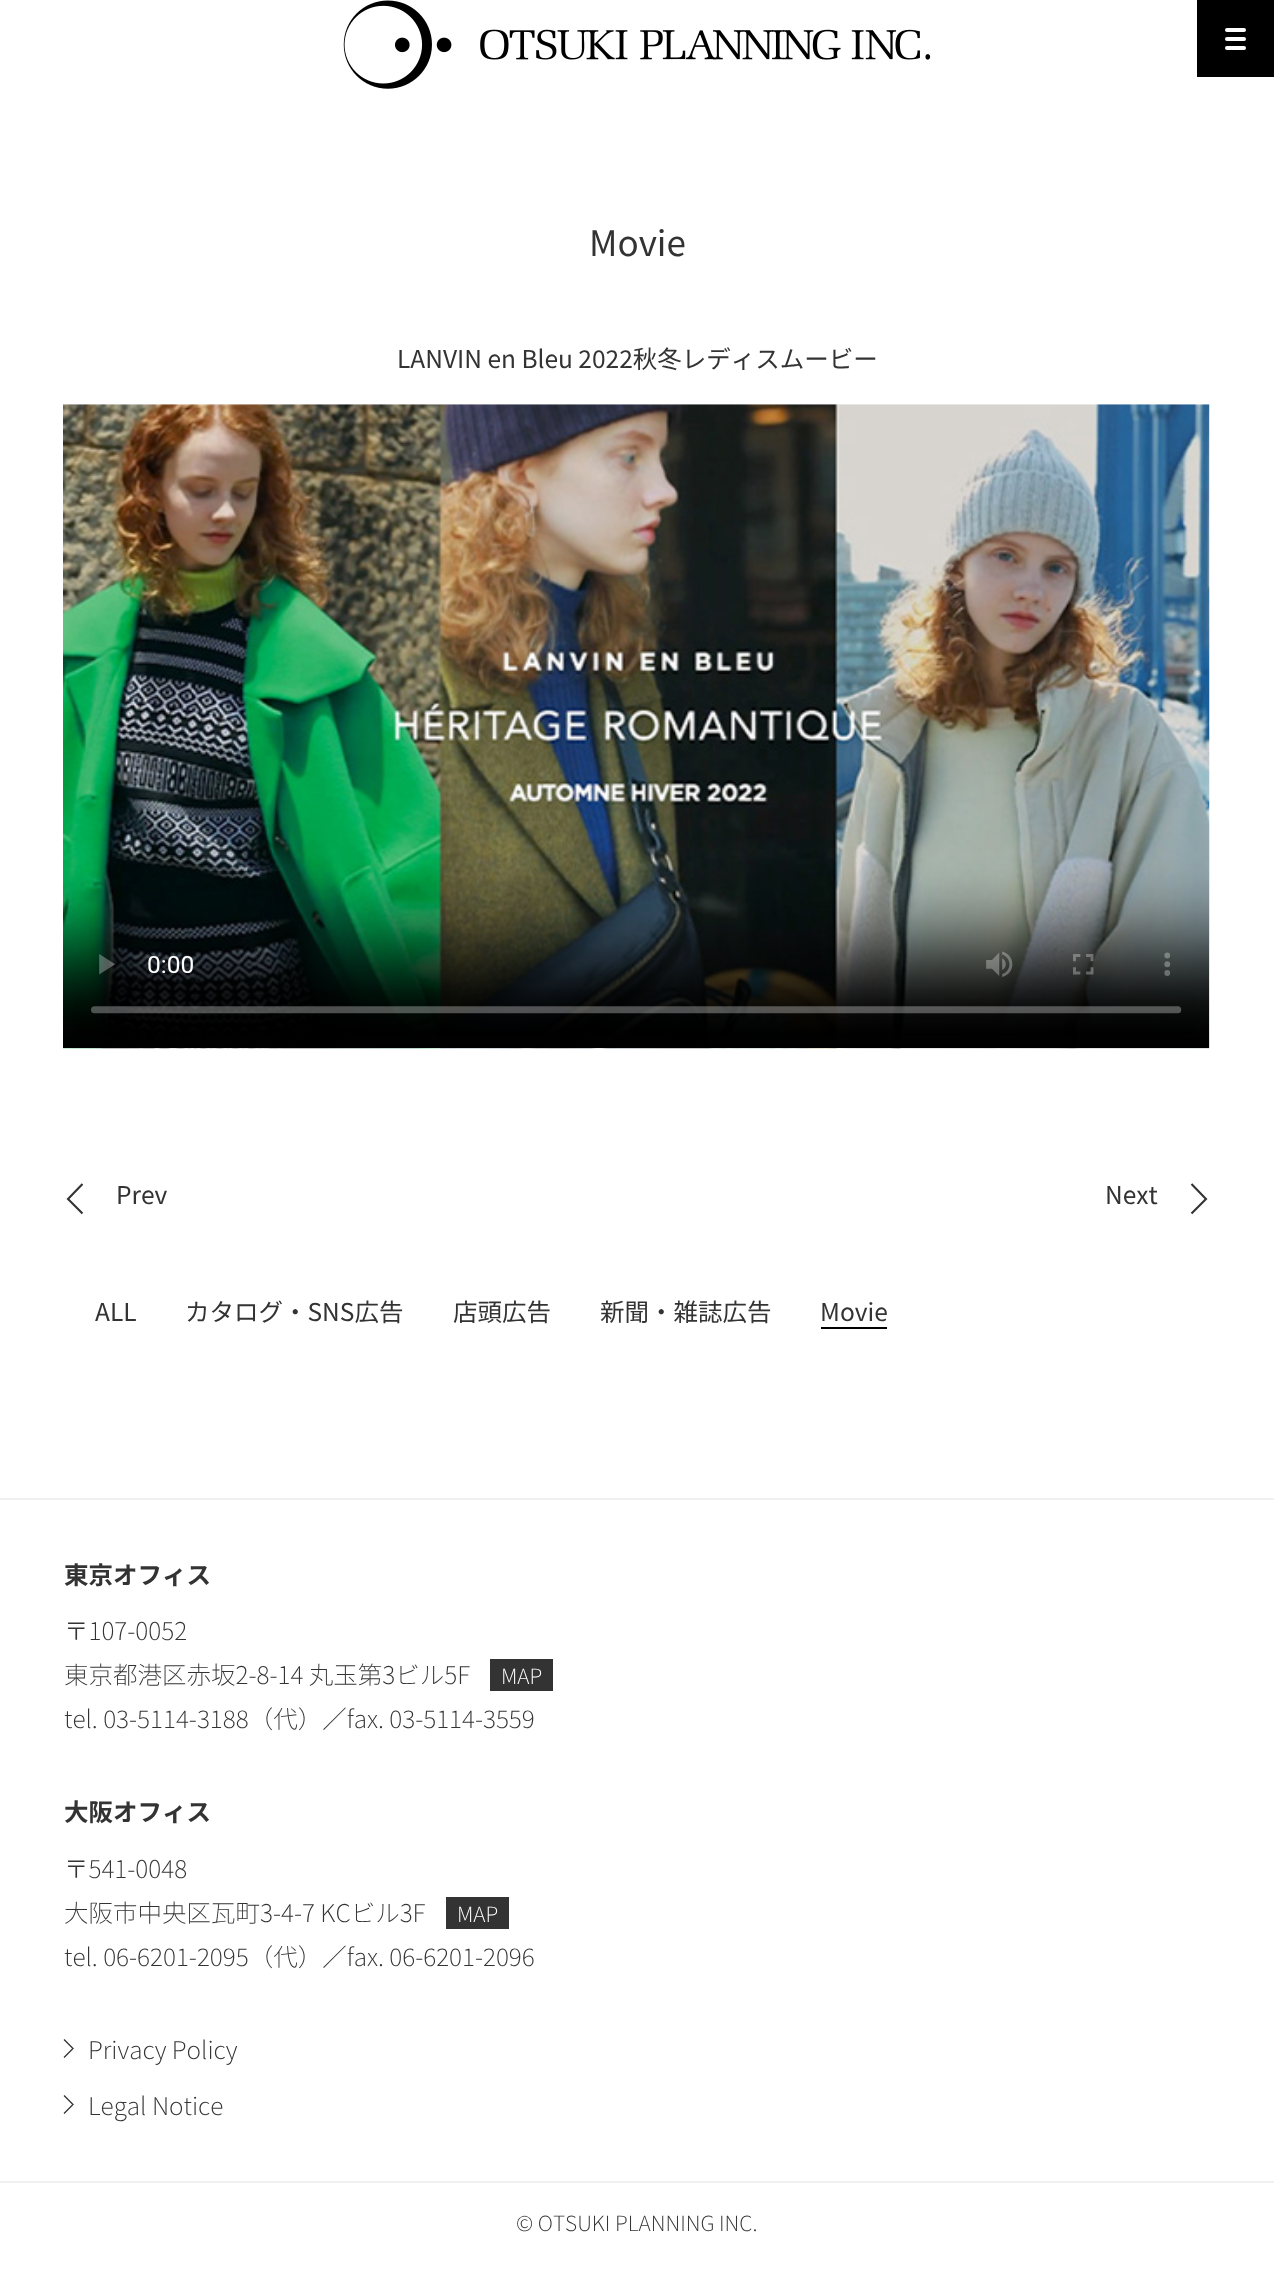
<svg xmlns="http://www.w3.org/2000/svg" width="1274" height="2280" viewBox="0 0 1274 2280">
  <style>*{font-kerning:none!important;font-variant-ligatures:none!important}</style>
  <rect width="100%" height="100%" fill="#ffffff"/>
  <image x="343" y="0" width="588" height="89" href="img1.png"/>
  <rect x="1197" y="0" width="77" height="77" fill="#000000"/>
  <rect x="1225" y="28" width="21" height="4" rx="2" fill="#ffffff"/>
  <rect x="1225" y="37" width="21" height="4" rx="2" fill="#ffffff"/>
  <rect x="1225" y="46" width="21" height="4" rx="2" fill="#ffffff"/>
  <text x="589" y="256" font-family="Noto Sans JP" font-size="35" fill="#333333">Movie</text>
  <text x="397" y="368" font-family="Noto Sans JP" font-size="24.5" fill="#333333">LANVIN en Bleu 2022秋冬レディスムービー</text>
  <image x="63" y="404" width="1147" height="645" href="img2.png"/>
  <path d="M82.5 1213.5L68 1199L82.5 1184" fill="none" stroke="#333333" stroke-width="2.1"/>
  <text x="116" y="1204" font-family="Noto Sans JP" font-size="24.5" fill="#333333">Prev</text>
  <text x="1105" y="1204" font-family="Noto Sans JP" font-size="24.5" fill="#333333">Next</text>
  <path d="M1191.5 1213.5L1206 1199L1191.5 1184" fill="none" stroke="#333333" stroke-width="2.1"/>
  <text x="95" y="1321" font-family="Noto Sans JP" font-size="24.5" fill="#333333">ALL</text>
  <text x="185" y="1321" font-family="Noto Sans JP" font-size="24.5" fill="#333333">カタログ・SNS広告</text>
  <text x="453" y="1321" font-family="Noto Sans JP" font-size="24.5" fill="#333333">店頭広告</text>
  <text x="600" y="1321" font-family="Noto Sans JP" font-size="24.5" fill="#333333">新聞・雑誌広告</text>
  <text x="820" y="1321" font-family="Noto Sans JP" font-size="24.5" fill="#333333">Movie</text>
  <rect x="821" y="1327" width="66" height="2" fill="#000000"/>
  <rect x="0" y="1498" width="1274" height="2" fill="#f0f0f0"/>
  <text x="64" y="1584" font-family="Noto Sans JP" font-size="24.5" font-weight="bold" fill="#333333">東京オフィス</text>
  <text x="64" y="1640" font-family="Noto Sans JP" font-size="24.5" font-weight="200" fill="#333333">〒107-0052</text>
  <text x="64" y="1684" font-family="Noto Sans JP" font-size="24.5" font-weight="200" fill="#333333">東京都港区赤坂2-8-14 丸玉第3ビル5F</text>
  <rect x="490" y="1659" width="63" height="32" fill="#333333"/>
  <text x="501" y="1684" font-family="Noto Sans JP" font-size="21" font-weight="200" fill="#ffffff">MAP</text>
  <text x="64" y="1728" font-family="Noto Sans JP" font-size="24.5" font-weight="200" fill="#333333">tel. 03-5114-3188（代）／fax. 03-5114-3559</text>
  <text x="64" y="1821" font-family="Noto Sans JP" font-size="24.5" font-weight="bold" fill="#333333">大阪オフィス</text>
  <text x="64" y="1878" font-family="Noto Sans JP" font-size="24.5" font-weight="200" fill="#333333">〒541-0048</text>
  <text x="64" y="1922" font-family="Noto Sans JP" font-size="24.5" font-weight="200" fill="#333333">大阪市中央区瓦町3-4-7 KCビル3F</text>
  <rect x="446" y="1897" width="63" height="32" fill="#333333"/>
  <text x="457" y="1922" font-family="Noto Sans JP" font-size="21" font-weight="200" fill="#ffffff">MAP</text>
  <text x="64" y="1966" font-family="Noto Sans JP" font-size="24.5" font-weight="200" fill="#333333">tel. 06-6201-2095（代）／fax. 06-6201-2096</text>
  <text x="88" y="2059" font-family="Noto Sans JP" font-size="24.5" font-weight="200" fill="#333333">Privacy Policy</text>
  <path d="M64 2057.5L73 2048.5L64 2039.5" fill="none" stroke="#333333" stroke-width="1.3"/>
  <text x="88" y="2115" font-family="Noto Sans JP" font-size="24.5" font-weight="200" fill="#333333">Legal Notice</text>
  <path d="M64 2113.5L73 2104.5L64 2095.5" fill="none" stroke="#333333" stroke-width="1.3"/>
  <rect x="0" y="2181" width="1274" height="2" fill="#f0f0f0"/>
  <text x="516" y="2231" font-family="Noto Sans JP" font-size="21" font-weight="200" fill="#333333">© OTSUKI PLANNING INC.</text>
</svg>
